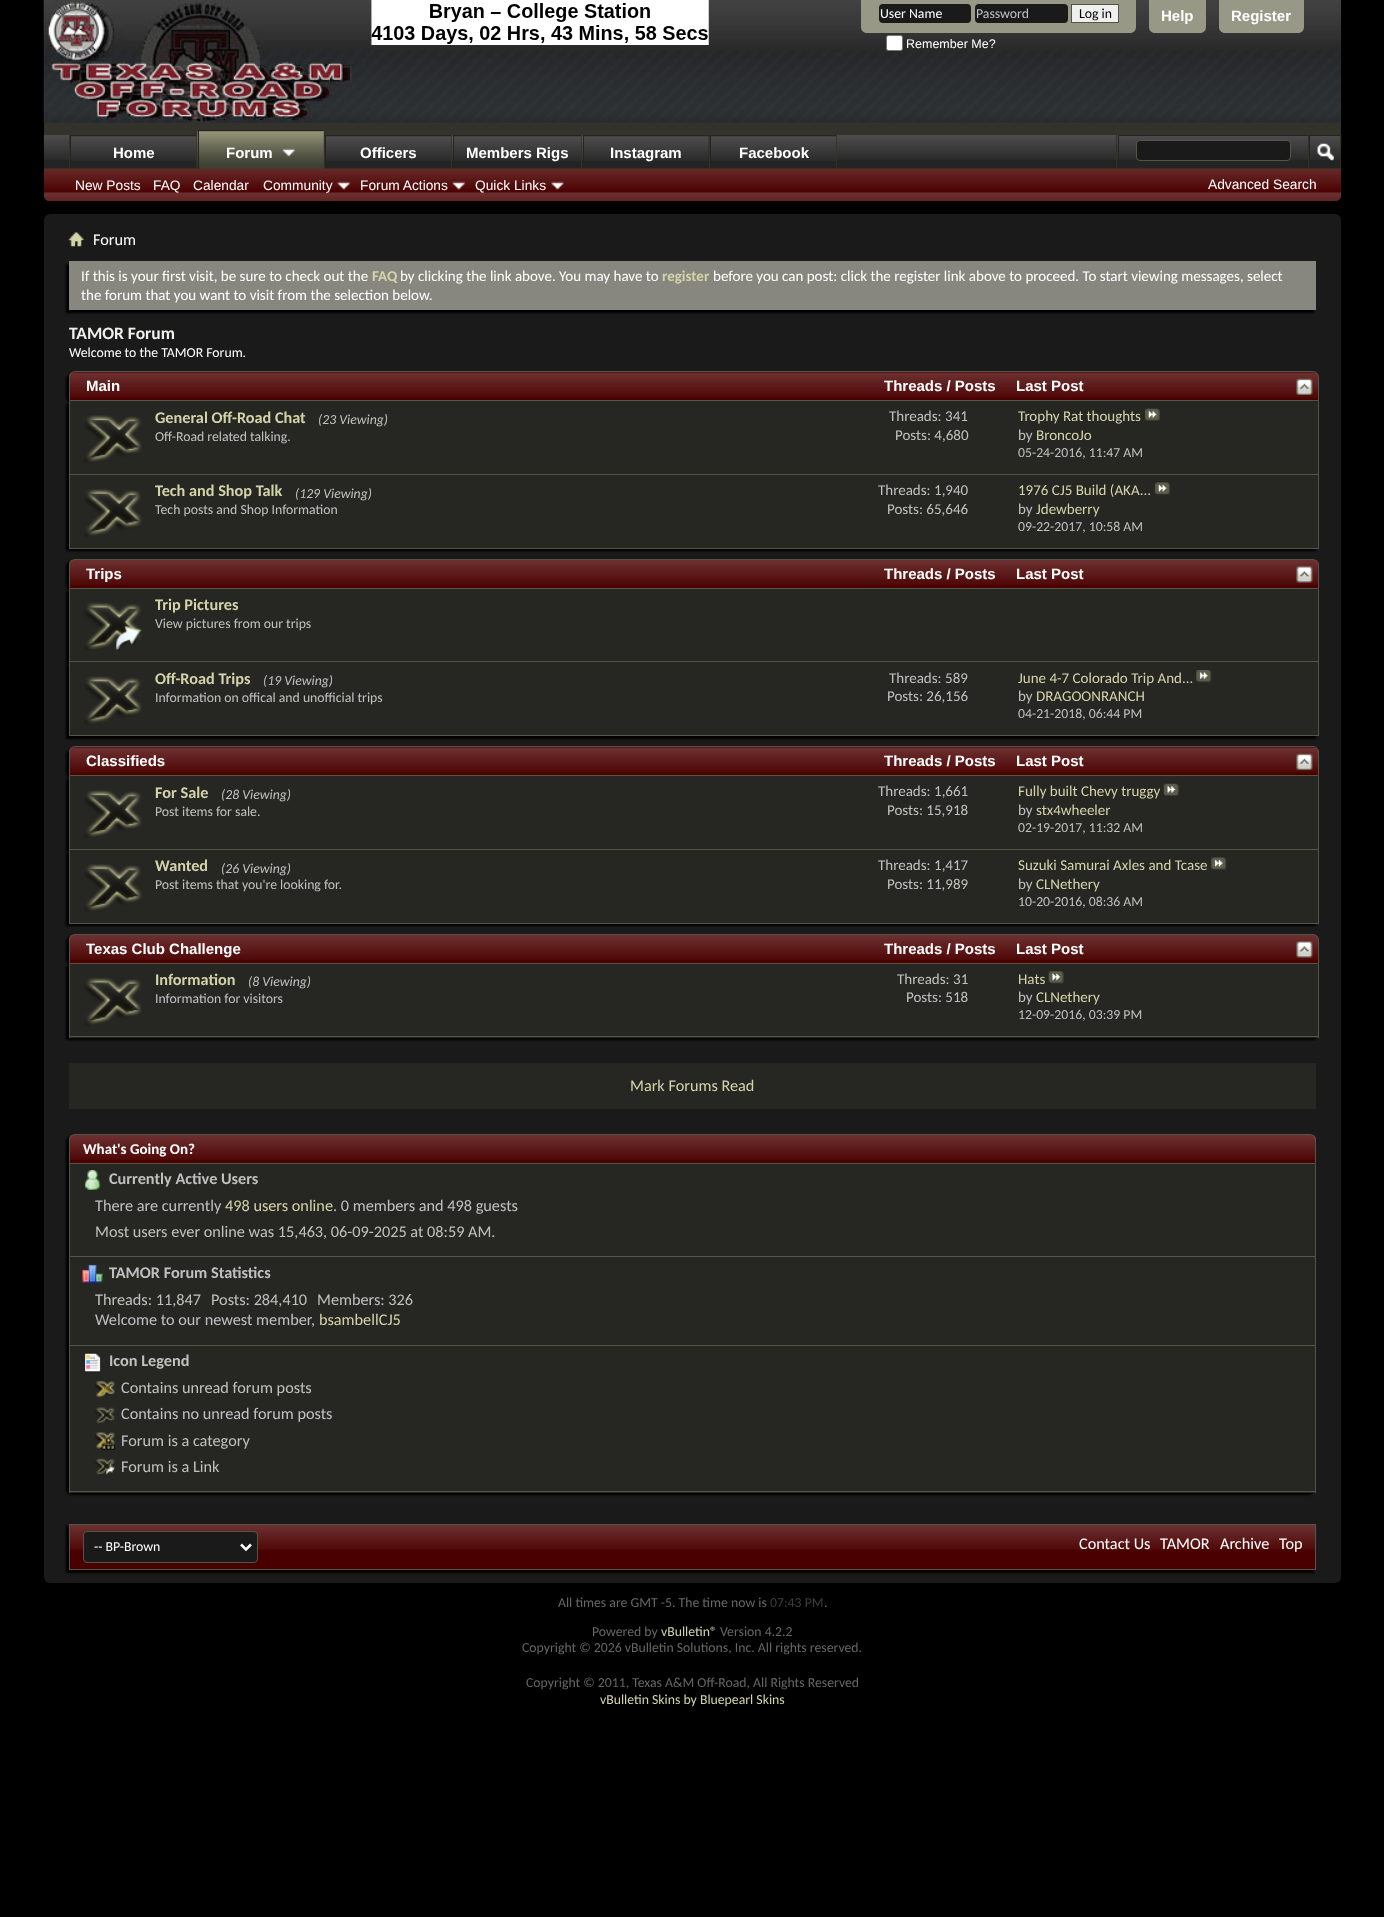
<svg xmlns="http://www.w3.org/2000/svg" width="1384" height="1917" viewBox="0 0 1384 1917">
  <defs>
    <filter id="blur1" x="-50%" y="-200%" width="200%" height="500%"><feGaussianBlur stdDeviation="1"/></filter>
  </defs>
  <rect width="100%" height="100%" fill="#000000"/>
  <path d="M44 0H1341V195C1341 198.5 1338.5 201 1335 201H50C46.5 201 44 198.5 44 195Z" fill="#33332c"/>
  <image x="43" y="0" width="1299" height="123" href="img1.png"/>
  <image x="43" y="0" width="328" height="123" href="img2.png"/>
  <image x="371" y="0" width="338" height="45" href="img3.png"/>
  <path d="M861 0H1136V27C1136 30.5 1133.5 33 1130 33H867C863.5 33 861 30.5 861 27Z" fill="#989886"/>
  <rect x="879" y="4" width="92" height="19" rx="4" fill="#1a1a1a"/>
  <text x="880" y="18" font-family="Carlito" font-size="13.75" fill="#ffffff">User Name</text>
  <rect x="975" y="4" width="93" height="19" rx="4" fill="#1a1a1a"/>
  <text x="976" y="18" font-family="Carlito" font-size="13.75" fill="#c0c0c0">Password</text>
  <rect x="1071.5" y="4.5" width="47" height="18" fill="#efefef" stroke="#565545"/>
  <text x="1079" y="18" font-family="Carlito" font-size="13.75" fill="#000000">Log in</text>
  <rect x="886.5" y="35.5" width="16" height="15" rx="2" fill="#ffffff" stroke="#767676"/>
  <text x="906" y="48" font-family="Liberation Sans" font-size="12.5" fill="#ffffff">Remember Me?</text>
  <path d="M1149 0H1206V27C1206 30.5 1203.5 33 1200 33H1155C1151.5 33 1149 30.5 1149 27Z" fill="#989886"/>
  <text x="1161" y="21" font-family="Liberation Sans" font-size="15" font-weight="bold" fill="#ffffff">Help</text>
  <path d="M1219 0H1304V27C1304 30.5 1301.5 33 1298 33H1225C1221.5 33 1219 30.5 1219 27Z" fill="#989886"/>
  <text x="1231" y="21" font-family="Liberation Sans" font-size="15" font-weight="bold" fill="#ffffff">Register</text>
  <path d="M44 135H1341V195C1341 198.5 1338.5 201 1335 201H50C46.5 201 44 198.5 44 195Z" fill="#4b0000"/>
  <image x="44" y="169" width="1297" height="32" href="img4.png"/>
  <rect x="44" y="135" width="1296" height="33" fill="#242424"/>
  <image x="43" y="135" width="1299" height="25" href="img5.png"/>
  <rect x="196" y="135" width="1" height="34" fill="#323124"/>
  <rect x="69" y="135" width="1" height="34" fill="#323124"/>
  <rect x="71" y="135" width="125" height="25" fill="#242424"/>
  <image x="71" y="136" width="126" height="25" href="img6.png"/>
  <rect x="70" y="135" width="1" height="34" fill="#242424"/>
  <text x="113" y="158" font-family="Liberation Sans" font-size="15" font-weight="bold" fill="#ffffff">Home</text>
  <rect x="324" y="135" width="1" height="33" fill="#323124"/>
  <rect x="451" y="135" width="1" height="34" fill="#323124"/>
  <rect x="325" y="135" width="1" height="34" fill="#242424"/>
  <rect x="581" y="135" width="1" height="34" fill="#323124"/>
  <rect x="454" y="135" width="127" height="25" fill="#242424"/>
  <image x="452" y="136" width="130" height="25" href="img9.png"/>
  <rect x="453" y="135" width="1" height="34" fill="#242424"/>
  <rect x="709" y="135" width="1" height="34" fill="#323124"/>
  <rect x="584" y="135" width="125" height="25" fill="#242424"/>
  <image x="582" y="136" width="127" height="25" href="img10.png"/>
  <rect x="583" y="135" width="1" height="34" fill="#242424"/>
  <rect x="836" y="135" width="1" height="34" fill="#323124"/>
  <rect x="710" y="135" width="1" height="34" fill="#242424"/>
  <rect x="44" y="168" width="1297" height="1" fill="#323124"/>
  <rect x="199" y="131" width="125" height="38" fill="#3e3e33"/>
  <image x="197" y="131" width="127" height="38" href="img7.png"/>
  <rect x="198" y="130" width="126" height="1" fill="#242424"/>
  <rect x="198" y="130" width="1" height="39" fill="#242424"/>
  <text x="226" y="158" font-family="Liberation Sans" font-size="15" font-weight="bold" fill="#ffffff">Forum</text>
  <image x="282" y="148" width="14" height="9" href="img8.png"/>
  <rect x="326" y="135" width="125" height="25" fill="#242424"/>
  <image x="326" y="136" width="126" height="25" href="img6.png"/>
  <text x="360" y="158" font-family="Liberation Sans" font-size="15" font-weight="bold" fill="#ffffff">Officers</text>
  <text x="466" y="158" font-family="Liberation Sans" font-size="15" font-weight="bold" fill="#ffffff">Members Rigs</text>
  <text x="610" y="158" font-family="Liberation Sans" font-size="15" font-weight="bold" fill="#ffffff">Instagram</text>
  <rect x="711" y="135" width="125" height="25" fill="#242424"/>
  <image x="711" y="136" width="126" height="25" href="img6.png"/>
  <text x="739" y="158" font-family="Liberation Sans" font-size="15" font-weight="bold" fill="#ffffff">Facebook</text>
  <text x="75" y="190" font-family="Liberation Sans" font-size="13.75" fill="#ffffff">New Posts</text>
  <text x="153" y="190" font-family="Liberation Sans" font-size="13.75" fill="#ffffff">FAQ</text>
  <text x="193" y="190" font-family="Liberation Sans" font-size="13.75" fill="#ffffff">Calendar</text>
  <text x="263" y="190" font-family="Liberation Sans" font-size="13.75" fill="#ffffff">Community</text>
  <image x="337" y="181" width="14" height="9" href="img11.png"/>
  <text x="360" y="190" font-family="Liberation Sans" font-size="13.75" fill="#ffffff">Forum Actions</text>
  <image x="452" y="181" width="14" height="9" href="img11.png"/>
  <text x="475" y="190" font-family="Liberation Sans" font-size="13.75" fill="#ffffff">Quick Links</text>
  <image x="551" y="181" width="13" height="9" href="img12.png"/>
  <rect x="1116" y="135" width="1" height="33" fill="#323124"/>
  <rect x="1118" y="135" width="190" height="1" fill="#242424"/>
  <rect x="1118" y="135" width="1" height="33" fill="#242424"/>
  <rect x="1136.5" y="140.5" width="154" height="20" rx="3.5" fill="#1a1a1a" stroke="#565545"/>
  <rect x="1340" y="135" width="1" height="33" fill="#323124"/>
  <rect x="1308" y="135" width="1" height="33" fill="#323124"/>
  <rect x="1309" y="135" width="31" height="1" fill="#242424"/>
  <rect x="1309" y="135" width="1" height="33" fill="#242424"/>
  <image x="1317" y="143" width="17" height="18" href="img13.png"/>
  <text x="1208" y="189" font-family="Liberation Sans" font-size="13.75" fill="#ffffff">Advanced Search</text>
  <rect x="44" y="214" width="1297" height="1369" rx="6" fill="#1a1a1a"/>
  <image x="68" y="232" width="16" height="15" href="img14.png"/>
  <text x="93" y="245" font-family="Carlito" font-size="16.25" fill="#ffffff">Forum</text>
  <rect x="66" y="264" width="1248" height="49" fill="#000000" filter="url(#blur1)"/>
  <rect x="69" y="261" width="1247" height="49" fill="#88877f"/>
  <text x="81" y="281" font-family="Carlito" font-size="15" fill="#ffffff">If this is your first visit, be sure to check out the</text>
  <text x="372" y="281" font-family="Carlito" font-size="15" font-weight="bold" fill="#d3d4aa">FAQ</text>
  <text x="400" y="281" font-family="Carlito" font-size="15" fill="#ffffff">by clicking the link above. You may have to</text>
  <text x="662" y="281" font-family="Carlito" font-size="15" font-weight="bold" fill="#d3d4aa">register</text>
  <text x="713" y="281" font-family="Carlito" font-size="15" fill="#ffffff">before you can post: click the register link above to proceed. To start viewing messages, select</text>
  <text x="81" y="300" font-family="Carlito" font-size="15" fill="#ffffff">the forum that you want to visit from the selection below.</text>
  <text x="69" y="339" font-family="Carlito" font-size="17.5" font-weight="bold" fill="#f0f0ef">TAMOR Forum</text>
  <text x="69" y="357" font-family="Carlito" font-size="13.75" fill="#ffffff">Welcome to the TAMOR Forum.</text>
  <rect x="66" y="374" width="1250" height="30" rx="6" fill="#000000" filter="url(#blur1)"/>
  <path d="M75 371H1313C1316.5 371 1319 373.5 1319 377V401H69V377C69 373.5 71.5 371 75 371Z" fill="#4b0000"/>
  <image x="69" y="372" width="1250" height="26" href="img15.png"/>
  <path d="M75 371.5H1313C1316 371.5 1318.5 374 1318.5 377V400.5H69.5V377C69.5 374 72 371.5 75 371.5Z" fill="none" stroke="#565545"/>
  <text x="86" y="391" font-family="Liberation Sans" font-size="15" font-weight="bold" fill="#ffffff">Main</text>
  <text x="884" y="391" font-family="Liberation Sans" font-size="15" font-weight="bold" fill="#ffffff">Threads / Posts</text>
  <text x="1016" y="391" font-family="Liberation Sans" font-size="15" font-weight="bold" fill="#ffffff">Last Post</text>
  <image x="1296" y="378" width="17" height="17" href="img16.png"/>
  <rect x="66" y="404" width="1250" height="74" fill="#000000" filter="url(#blur1)"/>
  <rect x="70" y="401" width="1248" height="73" fill="#262623"/>
  <rect x="1318" y="401" width="1" height="74" fill="#565545"/>
  <rect x="69" y="474" width="1250" height="1" fill="#565545"/>
  <rect x="69" y="401" width="1" height="74" fill="#565545"/>
  <image x="84" y="415" width="58" height="48" href="img17.png"/>
  <text x="155" y="423" font-family="Carlito" font-size="16.25" font-weight="bold" fill="#d3d4aa">General Off-Road Chat</text>
  <text x="318" y="424" font-family="Carlito" font-size="13.75" font-style="italic" fill="#c0c0c0">(23 Viewing)</text>
  <text x="155" y="441" font-family="Carlito" font-size="13.75" fill="#c0c0c0">Off-Road related talking.</text>
  <text x="889" y="421" font-family="Carlito" font-size="15" fill="#c0c0c0">Threads: 341</text>
  <text x="895" y="440" font-family="Carlito" font-size="15" fill="#c0c0c0">Posts: 4,680</text>
  <text x="1018" y="421" font-family="Carlito" font-size="15" fill="#d3d4aa">Trophy Rat thoughts</text>
  <image x="1145" y="408" width="15" height="13" href="img18.png"/>
  <text x="1018" y="440" font-family="Carlito" font-size="15" fill="#c0c0c0">by</text>
  <text x="1036" y="440" font-family="Carlito" font-size="15" fill="#d3d4aa">BroncoJo</text>
  <text x="1018" y="457" font-family="Carlito" font-size="13.75" fill="#c0c0c0">05-24-2016, 11:47 AM</text>
  <rect x="66" y="478" width="1250" height="73" fill="#000000" filter="url(#blur1)"/>
  <rect x="70" y="475" width="1248" height="73" fill="#262623"/>
  <rect x="1318" y="475" width="1" height="74" fill="#565545"/>
  <rect x="69" y="548" width="1250" height="1" fill="#565545"/>
  <rect x="69" y="475" width="1" height="74" fill="#565545"/>
  <image x="84" y="489" width="58" height="48" href="img19.png"/>
  <text x="155" y="496" font-family="Carlito" font-size="16.25" font-weight="bold" fill="#d3d4aa">Tech and Shop Talk</text>
  <text x="295" y="498" font-family="Carlito" font-size="13.75" font-style="italic" fill="#c0c0c0">(129 Viewing)</text>
  <text x="155" y="514" font-family="Carlito" font-size="13.75" fill="#c0c0c0">Tech posts and Shop Information</text>
  <text x="878" y="495" font-family="Carlito" font-size="15" fill="#c0c0c0">Threads: 1,940</text>
  <text x="887" y="514" font-family="Carlito" font-size="15" fill="#c0c0c0">Posts: 65,646</text>
  <text x="1018" y="495" font-family="Carlito" font-size="15" fill="#d3d4aa">1976 CJ5 Build (AKA...</text>
  <image x="1155" y="482" width="15" height="13" href="img20.png"/>
  <text x="1018" y="514" font-family="Carlito" font-size="15" fill="#c0c0c0">by</text>
  <text x="1036" y="514" font-family="Carlito" font-size="15" fill="#d3d4aa">Jdewberry</text>
  <text x="1018" y="531" font-family="Carlito" font-size="13.75" fill="#c0c0c0">09-22-2017, 10:58 AM</text>
  <rect x="66" y="561" width="1250" height="30" rx="6" fill="#000000" filter="url(#blur1)"/>
  <path d="M75 559H1313C1316.5 559 1319 561.5 1319 565V589H69V565C69 561.5 71.5 559 75 559Z" fill="#4b0000"/>
  <image x="69" y="560" width="1250" height="25" href="img21.png"/>
  <path d="M75 559.5H1313C1316 559.5 1318.5 562 1318.5 565V588.5H69.5V565C69.5 562 72 559.5 75 559.5Z" fill="none" stroke="#565545"/>
  <text x="86" y="579" font-family="Liberation Sans" font-size="15" font-weight="bold" fill="#ffffff">Trips</text>
  <text x="884" y="579" font-family="Liberation Sans" font-size="15" font-weight="bold" fill="#ffffff">Threads / Posts</text>
  <text x="1016" y="579" font-family="Liberation Sans" font-size="15" font-weight="bold" fill="#ffffff">Last Post</text>
  <image x="1296" y="566" width="17" height="17" href="img22.png"/>
  <rect x="66" y="591" width="1250" height="74" fill="#000000" filter="url(#blur1)"/>
  <rect x="70" y="589" width="1248" height="74" fill="#262623"/>
  <rect x="1318" y="589" width="1" height="74" fill="#565545"/>
  <rect x="69" y="661" width="1250" height="1" fill="#565545"/>
  <rect x="69" y="589" width="1" height="74" fill="#565545"/>
  <image x="84" y="602" width="58" height="49" href="img23.png"/>
  <text x="155" y="610" font-family="Carlito" font-size="16.25" font-weight="bold" fill="#d3d4aa">Trip Pictures</text>
  <text x="155" y="628" font-family="Carlito" font-size="13.75" fill="#c0c0c0">View pictures from our trips</text>
  <rect x="66" y="665" width="1250" height="74" fill="#000000" filter="url(#blur1)"/>
  <rect x="70" y="663" width="1248" height="72" fill="#262623"/>
  <rect x="1318" y="663" width="1" height="73" fill="#565545"/>
  <rect x="69" y="735" width="1250" height="1" fill="#565545"/>
  <rect x="69" y="663" width="1" height="73" fill="#565545"/>
  <image x="84" y="676" width="58" height="49" href="img24.png"/>
  <text x="155" y="684" font-family="Carlito" font-size="16.25" font-weight="bold" fill="#d3d4aa">Off-Road Trips</text>
  <text x="263" y="685" font-family="Carlito" font-size="13.75" font-style="italic" fill="#c0c0c0">(19 Viewing)</text>
  <text x="155" y="702" font-family="Carlito" font-size="13.75" fill="#c0c0c0">Information on offical and unofficial trips</text>
  <text x="889" y="683" font-family="Carlito" font-size="15" fill="#c0c0c0">Threads: 589</text>
  <text x="887" y="701" font-family="Carlito" font-size="15" fill="#c0c0c0">Posts: 26,156</text>
  <text x="1018" y="683" font-family="Carlito" font-size="15" fill="#d3d4aa">June 4-7 Colorado Trip And...</text>
  <image x="1196" y="670" width="16" height="13" href="img25.png"/>
  <text x="1018" y="701" font-family="Carlito" font-size="15" fill="#c0c0c0">by</text>
  <text x="1036" y="701" font-family="Carlito" font-size="15" fill="#d3d4aa">DRAGOONRANCH</text>
  <text x="1018" y="718" font-family="Carlito" font-size="13.75" fill="#c0c0c0">04-21-2018, 06:44 PM</text>
  <rect x="66" y="749" width="1250" height="30" rx="6" fill="#000000" filter="url(#blur1)"/>
  <path d="M75 746H1313C1316.5 746 1319 748.5 1319 752V776H69V752C69 748.5 71.5 746 75 746Z" fill="#4b0000"/>
  <image x="69" y="747" width="1250" height="26" href="img15.png"/>
  <path d="M75 746.5H1313C1316 746.5 1318.5 749 1318.5 752V775.5H69.5V752C69.5 749 72 746.5 75 746.5Z" fill="none" stroke="#565545"/>
  <text x="86" y="766" font-family="Liberation Sans" font-size="15" font-weight="bold" fill="#ffffff">Classifieds</text>
  <text x="884" y="766" font-family="Liberation Sans" font-size="15" font-weight="bold" fill="#ffffff">Threads / Posts</text>
  <text x="1016" y="766" font-family="Liberation Sans" font-size="15" font-weight="bold" fill="#ffffff">Last Post</text>
  <image x="1296" y="753" width="17" height="17" href="img16.png"/>
  <rect x="66" y="779" width="1250" height="74" fill="#000000" filter="url(#blur1)"/>
  <rect x="70" y="776" width="1248" height="73" fill="#262623"/>
  <rect x="1318" y="776" width="1" height="74" fill="#565545"/>
  <rect x="69" y="849" width="1250" height="1" fill="#565545"/>
  <rect x="69" y="776" width="1" height="74" fill="#565545"/>
  <image x="84" y="790" width="58" height="48" href="img17.png"/>
  <text x="155" y="798" font-family="Carlito" font-size="16.25" font-weight="bold" fill="#d3d4aa">For Sale</text>
  <text x="221" y="799" font-family="Carlito" font-size="13.75" font-style="italic" fill="#c0c0c0">(28 Viewing)</text>
  <text x="155" y="816" font-family="Carlito" font-size="13.75" fill="#c0c0c0">Post items for sale.</text>
  <text x="878" y="796" font-family="Carlito" font-size="15" fill="#c0c0c0">Threads: 1,661</text>
  <text x="887" y="815" font-family="Carlito" font-size="15" fill="#c0c0c0">Posts: 15,918</text>
  <text x="1018" y="796" font-family="Carlito" font-size="15" fill="#d3d4aa">Fully built Chevy truggy</text>
  <image x="1163" y="783" width="16" height="13" href="img26.png"/>
  <text x="1018" y="815" font-family="Carlito" font-size="15" fill="#c0c0c0">by</text>
  <text x="1036" y="815" font-family="Carlito" font-size="15" fill="#d3d4aa">stx4wheeler</text>
  <text x="1018" y="832" font-family="Carlito" font-size="13.75" fill="#c0c0c0">02-19-2017, 11:32 AM</text>
  <rect x="66" y="853" width="1250" height="73" fill="#000000" filter="url(#blur1)"/>
  <rect x="70" y="850" width="1248" height="73" fill="#262623"/>
  <rect x="1318" y="850" width="1" height="74" fill="#565545"/>
  <rect x="69" y="923" width="1250" height="1" fill="#565545"/>
  <rect x="69" y="850" width="1" height="74" fill="#565545"/>
  <image x="84" y="864" width="58" height="48" href="img19.png"/>
  <text x="155" y="871" font-family="Carlito" font-size="16.25" font-weight="bold" fill="#d3d4aa">Wanted</text>
  <text x="221" y="873" font-family="Carlito" font-size="13.75" font-style="italic" fill="#c0c0c0">(26 Viewing)</text>
  <text x="155" y="889" font-family="Carlito" font-size="13.75" fill="#c0c0c0">Post items that you're looking for.</text>
  <text x="878" y="870" font-family="Carlito" font-size="15" fill="#c0c0c0">Threads: 1,417</text>
  <text x="887" y="889" font-family="Carlito" font-size="15" fill="#c0c0c0">Posts: 11,989</text>
  <text x="1018" y="870" font-family="Carlito" font-size="15" fill="#d3d4aa">Suzuki Samurai Axles and Tcase</text>
  <image x="1211" y="857" width="16" height="13" href="img27.png"/>
  <text x="1018" y="889" font-family="Carlito" font-size="15" fill="#c0c0c0">by</text>
  <text x="1036" y="889" font-family="Carlito" font-size="15" fill="#d3d4aa">CLNethery</text>
  <text x="1018" y="906" font-family="Carlito" font-size="13.75" fill="#c0c0c0">10-20-2016, 08:36 AM</text>
  <rect x="66" y="936" width="1250" height="30" rx="6" fill="#000000" filter="url(#blur1)"/>
  <path d="M75 934H1313C1316.5 934 1319 936.5 1319 940V964H69V940C69 936.5 71.5 934 75 934Z" fill="#4b0000"/>
  <image x="69" y="935" width="1250" height="25" href="img21.png"/>
  <path d="M75 934.5H1313C1316 934.5 1318.5 937 1318.5 940V963.5H69.5V940C69.5 937 72 934.5 75 934.5Z" fill="none" stroke="#565545"/>
  <text x="86" y="954" font-family="Liberation Sans" font-size="15" font-weight="bold" fill="#ffffff">Texas Club Challenge</text>
  <text x="884" y="954" font-family="Liberation Sans" font-size="15" font-weight="bold" fill="#ffffff">Threads / Posts</text>
  <text x="1016" y="954" font-family="Liberation Sans" font-size="15" font-weight="bold" fill="#ffffff">Last Post</text>
  <image x="1296" y="941" width="17" height="17" href="img22.png"/>
  <rect x="66" y="966" width="1250" height="74" fill="#000000" filter="url(#blur1)"/>
  <rect x="70" y="964" width="1248" height="74" fill="#262623"/>
  <rect x="1318" y="964" width="1" height="74" fill="#565545"/>
  <rect x="69" y="1036" width="1250" height="1" fill="#565545"/>
  <rect x="69" y="964" width="1" height="74" fill="#565545"/>
  <image x="84" y="977" width="58" height="49" href="img28.png"/>
  <text x="155" y="985" font-family="Carlito" font-size="16.25" font-weight="bold" fill="#d3d4aa">Information</text>
  <text x="248" y="986" font-family="Carlito" font-size="13.75" font-style="italic" fill="#c0c0c0">(8 Viewing)</text>
  <text x="155" y="1003" font-family="Carlito" font-size="13.75" fill="#c0c0c0">Information for visitors</text>
  <text x="897" y="984" font-family="Carlito" font-size="15" fill="#c0c0c0">Threads: 31</text>
  <text x="906" y="1002" font-family="Carlito" font-size="15" fill="#c0c0c0">Posts: 518</text>
  <text x="1018" y="984" font-family="Carlito" font-size="15" fill="#d3d4aa">Hats</text>
  <image x="1048" y="971" width="16" height="13" href="img29.png"/>
  <text x="1018" y="1002" font-family="Carlito" font-size="15" fill="#c0c0c0">by</text>
  <text x="1036" y="1002" font-family="Carlito" font-size="15" fill="#d3d4aa">CLNethery</text>
  <text x="1018" y="1019" font-family="Carlito" font-size="13.75" fill="#c0c0c0">12-09-2016, 03:39 PM</text>
  <rect x="69" y="1063" width="1247" height="46" fill="#262623"/>
  <text x="630" y="1091" font-family="Carlito" font-size="16.25" fill="#d3d4aa">Mark Forums Read</text>
  <rect x="66" y="1136" width="1248" height="359" rx="6" fill="#000000" filter="url(#blur1)"/>
  <path d="M75 1134H1310C1313.5 1134 1316 1136.5 1316 1140V1164H69V1140C69 1136.5 71.5 1134 75 1134Z" fill="#4b0000"/>
  <image x="69" y="1135" width="1247" height="25" href="img30.png"/>
  <path d="M75 1134.5H1310C1313 1134.5 1315.5 1137 1315.5 1140V1163.5H69.5V1140C69.5 1137 72 1134.5 75 1134.5Z" fill="none" stroke="#565545"/>
  <text x="83" y="1154" font-family="Carlito" font-size="15" font-weight="bold" fill="#ffffff">What's Going On?</text>
  <rect x="70" y="1164" width="1245" height="329" fill="#262623"/>
  <rect x="1315" y="1164" width="1" height="329" fill="#565545"/>
  <rect x="69" y="1491" width="1247" height="1" fill="#565545"/>
  <rect x="69" y="1164" width="1" height="329" fill="#565545"/>
  <rect x="70" y="1256" width="1245" height="1" fill="#565545"/>
  <image x="84" y="1170" width="17" height="20" href="img31.png"/>
  <text x="109" y="1184" font-family="Carlito" font-size="16.25" font-weight="bold" fill="#c0c0c0">Currently Active Users</text>
  <text x="95" y="1211" font-family="Carlito" font-size="16.25" fill="#c0c0c0">There are currently</text>
  <text x="225" y="1211" font-family="Carlito" font-size="16.25" fill="#d3d4aa">498 users online</text>
  <text x="333" y="1211" font-family="Carlito" font-size="16.25" fill="#c0c0c0">. 0 members and 498 guests</text>
  <text x="95" y="1237" font-family="Carlito" font-size="16.25" fill="#c0c0c0">Most users ever online was 15,463, 06-09-2025 at 08:59 AM.</text>
  <rect x="70" y="1345" width="1245" height="1" fill="#565545"/>
  <image x="82" y="1264" width="21" height="19" href="img32.png"/>
  <text x="109" y="1278" font-family="Carlito" font-size="16.25" font-weight="bold" fill="#c0c0c0">TAMOR Forum Statistics</text>
  <text x="95" y="1305" font-family="Carlito" font-size="16.25" fill="#c0c0c0">Threads: 11,847</text>
  <text x="211" y="1305" font-family="Carlito" font-size="16.25" fill="#c0c0c0">Posts: 284,410</text>
  <text x="317" y="1305" font-family="Carlito" font-size="16.25" fill="#c0c0c0">Members: 326</text>
  <text x="95" y="1325" font-family="Carlito" font-size="16.25" fill="#c0c0c0">Welcome to our newest member,</text>
  <text x="319" y="1325" font-family="Carlito" font-size="16.25" fill="#d3d4aa">bsambellCJ5</text>
  <image x="84" y="1352" width="17" height="21" href="img33.png"/>
  <text x="109" y="1366" font-family="Carlito" font-size="16.25" font-weight="bold" fill="#c0c0c0">Icon Legend</text>
  <image x="95" y="1381" width="20" height="17" href="img34.png"/>
  <text x="121" y="1393" font-family="Carlito" font-size="16.25" fill="#c0c0c0">Contains unread forum posts</text>
  <image x="95" y="1407" width="20" height="17" href="img35.png"/>
  <text x="121" y="1419" font-family="Carlito" font-size="16.25" fill="#c0c0c0">Contains no unread forum posts</text>
  <image x="95" y="1432" width="20" height="18" href="img36.png"/>
  <text x="121" y="1446" font-family="Carlito" font-size="16.25" fill="#c0c0c0">Forum is a category</text>
  <image x="95" y="1458" width="20" height="17" href="img37.png"/>
  <text x="121" y="1472" font-family="Carlito" font-size="16.25" fill="#c0c0c0">Forum is a Link</text>
  <rect x="66" y="1526" width="1248" height="47" fill="#000000" filter="url(#blur1)"/>
  <rect x="70" y="1525" width="1245" height="44" fill="#4b0000"/>
  <image x="68" y="1525" width="1249" height="25" href="img38.png"/>
  <rect x="69.5" y="1524.5" width="1246" height="45" fill="none" stroke="#565545"/>
  <rect x="83.5" y="1531.5" width="174" height="31" rx="3.5" fill="#1a1a1a" stroke="#565545"/>
  <path d="M241 1544.5L246 1549.5L251 1544.5" fill="none" stroke="#ffffff" stroke-width="2.5"/>
  <text x="94" y="1551" font-family="Carlito" font-size="13.75" fill="#ffffff">-- BP-Brown</text>
  <text x="1079" y="1549" font-family="Carlito" font-size="16.25" fill="#ffffff">Contact Us</text>
  <text x="1160" y="1549" font-family="Carlito" font-size="16.25" fill="#ffffff">TAMOR</text>
  <text x="1220" y="1549" font-family="Carlito" font-size="16.25" fill="#ffffff">Archive</text>
  <text x="1279" y="1549" font-family="Carlito" font-size="16.25" fill="#ffffff">Top</text>
  <text x="558" y="1607" font-family="Carlito" font-size="13.75" fill="#666666">All times are GMT -5. The time now is</text>
  <text x="770" y="1607" font-family="Carlito" font-size="13.75" fill="#3e3e3e">07:43 PM</text>
  <text x="824" y="1607" font-family="Carlito" font-size="13.75" fill="#666666">.</text>
  <text x="592" y="1636" font-family="Carlito" font-size="13.75" fill="#666666">Powered by</text>
  <text x="661" y="1636" font-family="Carlito" font-size="13.75" fill="#d3d4aa">vBulletin®</text>
  <text x="720" y="1636" font-family="Carlito" font-size="13.75" fill="#666666">Version 4.2.2</text>
  <text x="522" y="1652" font-family="Carlito" font-size="13.75" fill="#666666">Copyright © 2026 vBulletin Solutions, Inc. All rights reserved.</text>
  <text x="526" y="1687" font-family="Carlito" font-size="13.75" fill="#666666">Copyright © 2011, Texas A&amp;M Off-Road, All Rights Reserved</text>
  <text x="600" y="1704" font-family="Carlito" font-size="13.75" fill="#d3d4aa">vBulletin Skins by Bluepearl Skins</text>
</svg>
